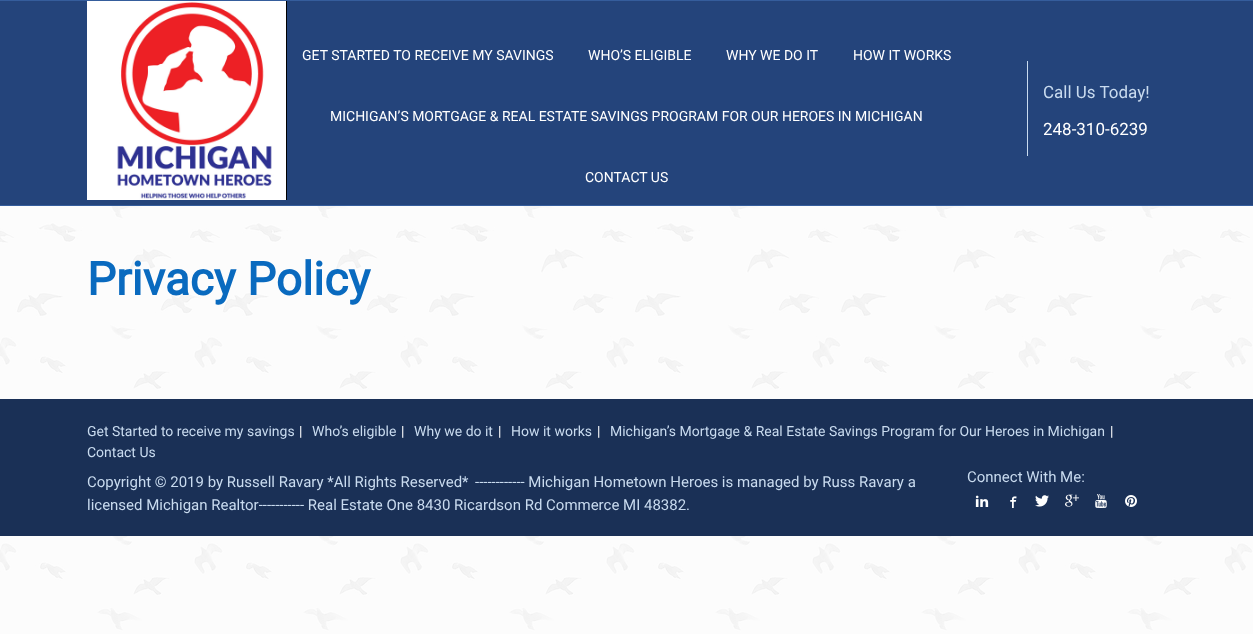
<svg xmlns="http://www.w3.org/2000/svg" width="1253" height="634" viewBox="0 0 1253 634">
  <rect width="100%" height="100%" fill="#ffffff"/>
  <image x="0" y="206" width="1253" height="428" href="img1.png"/>
  <rect x="0" y="1" width="1253" height="204" fill="#24447b"/>
  <rect x="0" y="0" width="1253" height="1" fill="#355d9c"/>
  <rect x="0" y="205" width="1253" height="1" fill="#355d9c"/>
  <rect x="286" y="1" width="1" height="199" fill="#000000"/>
  <image x="87" y="1" width="199" height="199" href="img2.png"/>
  <text x="302" y="60" font-family="Roboto" font-size="14" fill="#ffffff">GET STARTED TO RECEIVE MY SAVINGS</text>
  <text x="588" y="60" font-family="Roboto" font-size="14" fill="#ffffff">WHO’S ELIGIBLE</text>
  <text x="726" y="60" font-family="Roboto" font-size="14" fill="#ffffff">WHY WE DO IT</text>
  <text x="853" y="60" font-family="Roboto" font-size="14" fill="#ffffff">HOW IT WORKS</text>
  <text x="330" y="121" font-family="Roboto" font-size="14" fill="#ffffff">MICHIGAN’S MORTGAGE &amp; REAL ESTATE SAVINGS PROGRAM FOR OUR HEROES IN MICHIGAN</text>
  <text x="585" y="182" font-family="Roboto" font-size="14" fill="#ffffff">CONTACT US</text>
  <rect x="1027" y="61" width="1" height="95" fill="#c9dbef"/>
  <text x="1043" y="98" font-family="Roboto" font-size="17" fill="#c9dbef">Call Us Today!</text>
  <text x="1043" y="135" font-family="Roboto" font-size="17" fill="#ffffff">248-310-6239</text>
  <text x="87" y="295" font-family="Roboto" font-size="46" font-weight="bold" fill="#096abf">Privacy Policy</text>
  <rect x="0" y="399" width="1253" height="137" fill="#1a3056"/>
  <text x="87" y="436" font-family="Roboto" font-size="14" fill="#c9dbef">Get Started to receive my savings</text>
  <text x="299" y="436" font-family="Roboto" font-size="14" fill="#ffffff">|</text>
  <text x="312" y="436" font-family="Roboto" font-size="14" fill="#c9dbef">Who’s eligible</text>
  <text x="401" y="436" font-family="Roboto" font-size="14" fill="#ffffff">|</text>
  <text x="414" y="436" font-family="Roboto" font-size="14" fill="#c9dbef">Why we do it</text>
  <text x="498" y="436" font-family="Roboto" font-size="14" fill="#ffffff">|</text>
  <text x="511" y="436" font-family="Roboto" font-size="14" fill="#c9dbef">How it works</text>
  <text x="597" y="436" font-family="Roboto" font-size="14" fill="#ffffff">|</text>
  <text x="610" y="436" font-family="Roboto" font-size="14" fill="#c9dbef">Michigan’s Mortgage &amp; Real Estate Savings Program for Our Heroes in Michigan</text>
  <text x="1110" y="436" font-family="Roboto" font-size="14" fill="#ffffff">|</text>
  <text x="87" y="457" font-family="Roboto" font-size="14" fill="#c9dbef">Contact Us</text>
  <text x="87" y="487" font-family="Roboto" font-size="15" fill="#c9dbef">Copyright © 2019 by Russell Ravary *All Rights Reserved*</text>
  <text x="475" y="487" font-family="Roboto" font-size="15" fill="#c9dbef">------------ Michigan Hometown Heroes is managed by Russ Ravary a</text>
  <text x="87" y="510" font-family="Roboto" font-size="15" fill="#c9dbef">licensed Michigan Realtor----------- Real Estate One 8430 Ricardson Rd Commerce MI 48382.</text>
  <text x="967" y="482" font-family="Roboto" font-size="15" fill="#c9dbef">Connect With Me:</text>
  <image x="975" y="495" width="14" height="12" href="img3.png"/>
  <text x="1005" y="507" font-family="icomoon" font-size="14" fill="#ffffff">=</text>
  <image x="1035" y="495" width="14" height="12" href="img4.png"/>
  <text x="1065" y="507" font-family="icomoon" font-size="14" fill="#ffffff">-</text>
  <image x="1095" y="494" width="12" height="14" href="img5.png"/>
  <image x="1125" y="495" width="12" height="12" href="img6.png"/>
</svg>
